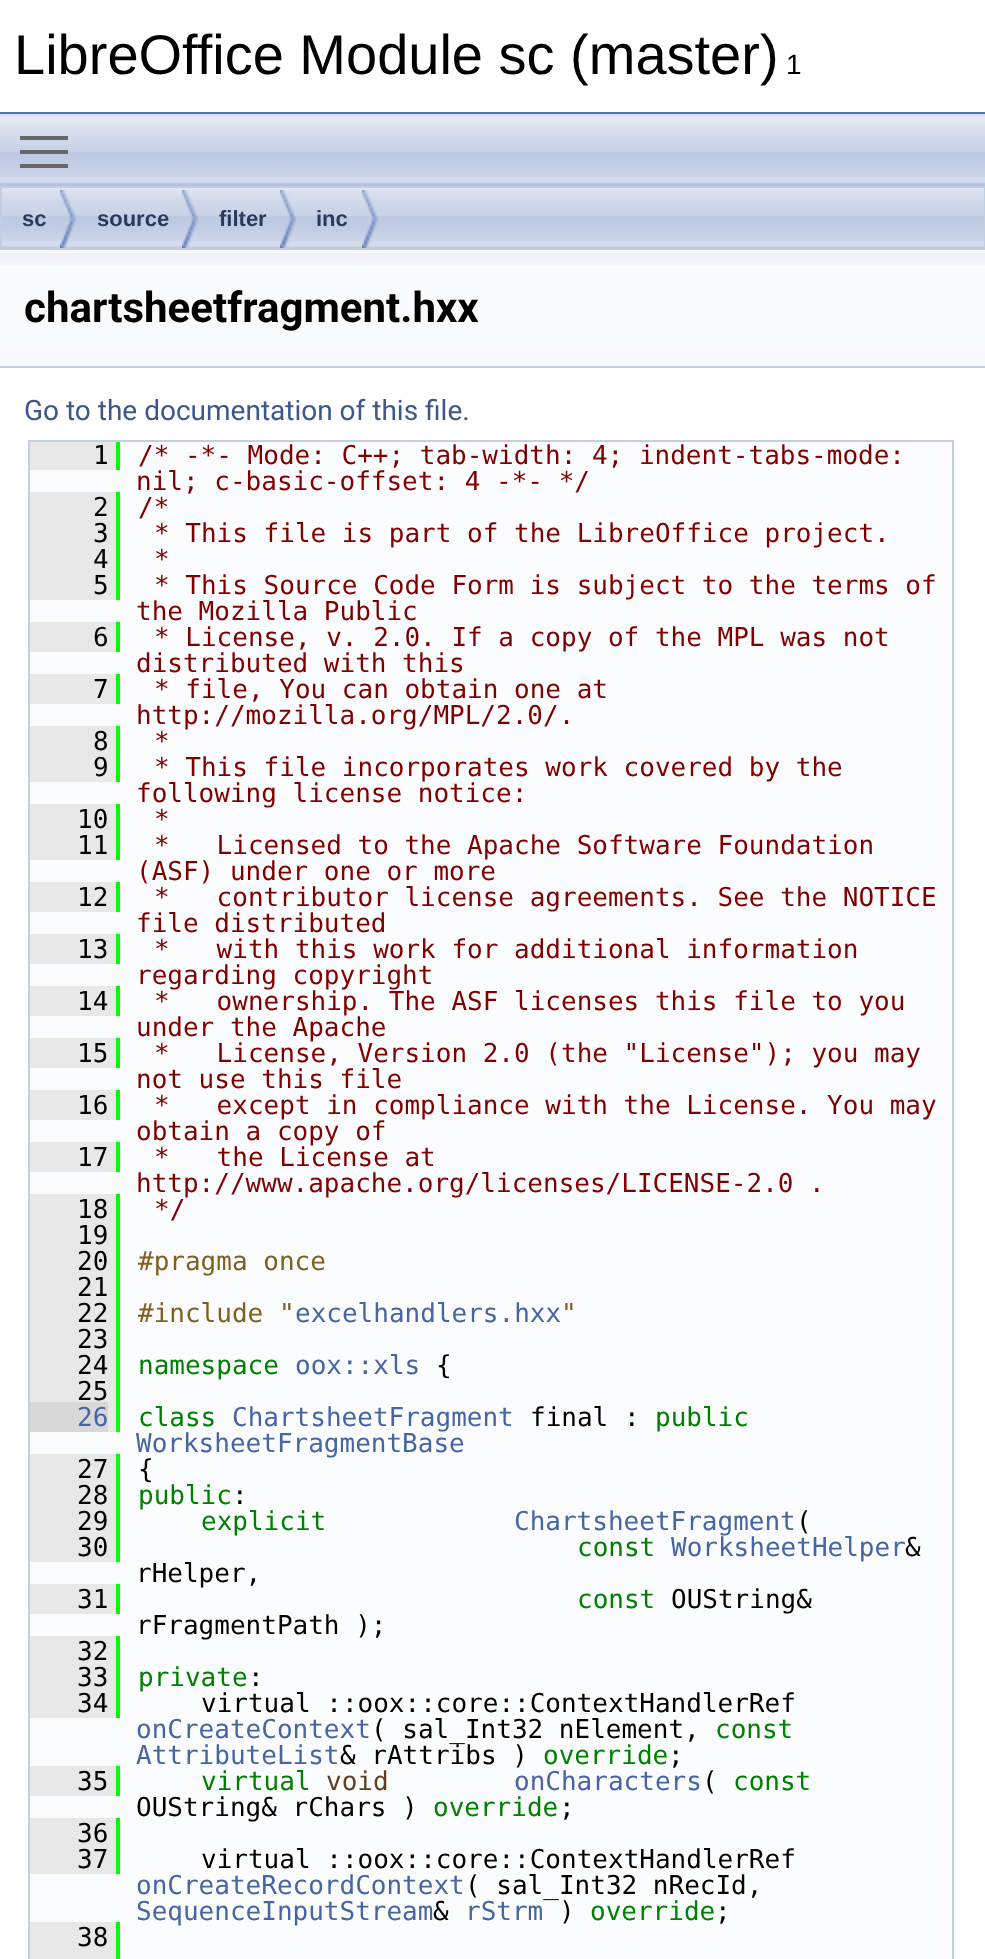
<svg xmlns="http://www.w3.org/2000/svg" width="985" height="1959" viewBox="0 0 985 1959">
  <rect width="100%" height="100%" fill="#ffffff"/>
  <rect x="0" y="112" width="985" height="2" fill="#5373b4"/>
  <text x="14" y="74" font-family="Liberation Sans" font-size="56" fill="#000000">LibreOffice Module sc (master)</text>
  <text x="786" y="74" font-family="Liberation Sans" font-size="28" fill="#000000">1</text>
  <image x="0" y="114" width="985" height="72" href="img1.png"/>
  <rect x="20" y="150" width="48" height="4" fill="#666666"/>
  <rect x="20" y="136" width="48" height="4" fill="#666666"/>
  <rect x="20" y="164" width="48" height="4" fill="#666666"/>
  <image x="2" y="188" width="982" height="60" href="img2.png"/>
  <rect x="1" y="187" width="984" height="62" fill="none" stroke="#c2cde4" stroke-width="2"/>
  <image x="60" y="190" width="16" height="58" href="img3.png"/>
  <text x="22" y="226" font-family="Liberation Sans" font-size="22" font-weight="bold" fill="#283a5d">sc</text>
  <image x="182" y="190" width="16" height="58" href="img3.png"/>
  <text x="97" y="226" font-family="Liberation Sans" font-size="22" font-weight="bold" fill="#283a5d">source</text>
  <image x="280" y="190" width="16" height="58" href="img3.png"/>
  <text x="219" y="226" font-family="Liberation Sans" font-size="22" font-weight="bold" fill="#283a5d">filter</text>
  <image x="362" y="190" width="16" height="58" href="img3.png"/>
  <text x="316" y="226" font-family="Liberation Sans" font-size="22" font-weight="bold" fill="#283a5d">inc</text>
  <rect x="0" y="266" width="985" height="100" fill="#f9fafc"/>
  <image x="0" y="250" width="985" height="16" href="img4.png"/>
  <rect x="0" y="366" width="985" height="2" fill="#c4cfe5"/>
  <text x="24" y="322" font-family="Roboto" font-size="42" font-weight="bold" fill="#000000">chartsheetfragment.hxx</text>
  <text x="24" y="420" font-family="Roboto" font-size="28" fill="#3d578c">Go to the documentation of this file.</text>
  <rect x="29" y="441" width="924" height="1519" fill="#fbfcfd" stroke="#c4cfe5" stroke-width="2"/>
  <rect x="30" y="442" width="86" height="28" fill="#e8e8e8"/>
  <text x="93" y="464" font-family="DejaVu Sans Mono" font-size="26" fill="#000000">1</text>
  <rect x="116" y="442" width="4" height="28" fill="#00ff00"/>
  <text x="138" y="464" font-family="DejaVu Sans Mono" font-size="26" fill="#800000">/* -*- Mode: C++; tab-width: 4; indent-tabs-mode:</text>
  <text x="136" y="490" font-family="DejaVu Sans Mono" font-size="26" fill="#800000">nil; c-basic-offset: 4 -*- */</text>
  <rect x="30" y="492" width="86" height="108" fill="#e8e8e8"/>
  <text x="93" y="516" font-family="DejaVu Sans Mono" font-size="26" fill="#000000">2</text>
  <rect x="116" y="492" width="4" height="108" fill="#00ff00"/>
  <text x="138" y="516" font-family="DejaVu Sans Mono" font-size="26" fill="#800000">/*</text>
  <text x="93" y="542" font-family="DejaVu Sans Mono" font-size="26" fill="#000000">3</text>
  <text x="154" y="542" font-family="DejaVu Sans Mono" font-size="26" fill="#800000">* This file is part of the LibreOffice project.</text>
  <text x="93" y="568" font-family="DejaVu Sans Mono" font-size="26" fill="#000000">4</text>
  <text x="154" y="568" font-family="DejaVu Sans Mono" font-size="26" fill="#800000">*</text>
  <text x="93" y="594" font-family="DejaVu Sans Mono" font-size="26" fill="#000000">5</text>
  <text x="154" y="594" font-family="DejaVu Sans Mono" font-size="26" fill="#800000">* This Source Code Form is subject to the terms of</text>
  <text x="136" y="620" font-family="DejaVu Sans Mono" font-size="26" fill="#800000">the Mozilla Public</text>
  <rect x="30" y="622" width="86" height="30" fill="#e8e8e8"/>
  <text x="93" y="646" font-family="DejaVu Sans Mono" font-size="26" fill="#000000">6</text>
  <rect x="116" y="622" width="4" height="30" fill="#00ff00"/>
  <text x="154" y="646" font-family="DejaVu Sans Mono" font-size="26" fill="#800000">* License, v. 2.0. If a copy of the MPL was not</text>
  <text x="136" y="672" font-family="DejaVu Sans Mono" font-size="26" fill="#800000">distributed with this</text>
  <rect x="30" y="674" width="86" height="30" fill="#e8e8e8"/>
  <text x="93" y="698" font-family="DejaVu Sans Mono" font-size="26" fill="#000000">7</text>
  <rect x="116" y="674" width="4" height="30" fill="#00ff00"/>
  <text x="154" y="698" font-family="DejaVu Sans Mono" font-size="26" fill="#800000">* file, You can obtain one at</text>
  <text x="136" y="724" font-family="DejaVu Sans Mono" font-size="26" fill="#800000">http://mozilla.org/MPL/2.0/.</text>
  <rect x="30" y="726" width="86" height="56" fill="#e8e8e8"/>
  <text x="93" y="750" font-family="DejaVu Sans Mono" font-size="26" fill="#000000">8</text>
  <rect x="116" y="726" width="4" height="56" fill="#00ff00"/>
  <text x="154" y="750" font-family="DejaVu Sans Mono" font-size="26" fill="#800000">*</text>
  <text x="93" y="776" font-family="DejaVu Sans Mono" font-size="26" fill="#000000">9</text>
  <text x="154" y="776" font-family="DejaVu Sans Mono" font-size="26" fill="#800000">* This file incorporates work covered by the</text>
  <text x="136" y="802" font-family="DejaVu Sans Mono" font-size="26" fill="#800000">following license notice:</text>
  <rect x="30" y="804" width="86" height="56" fill="#e8e8e8"/>
  <text x="77" y="828" font-family="DejaVu Sans Mono" font-size="26" fill="#000000">10</text>
  <rect x="116" y="804" width="4" height="56" fill="#00ff00"/>
  <text x="154" y="828" font-family="DejaVu Sans Mono" font-size="26" fill="#800000">*</text>
  <text x="77" y="854" font-family="DejaVu Sans Mono" font-size="26" fill="#000000">11</text>
  <text x="154" y="854" font-family="DejaVu Sans Mono" font-size="26" fill="#800000" xml:space="preserve">*   Licensed to the Apache Software Foundation</text>
  <text x="136" y="880" font-family="DejaVu Sans Mono" font-size="26" fill="#800000">(ASF) under one or more</text>
  <rect x="30" y="882" width="86" height="30" fill="#e8e8e8"/>
  <text x="77" y="906" font-family="DejaVu Sans Mono" font-size="26" fill="#000000">12</text>
  <rect x="116" y="882" width="4" height="30" fill="#00ff00"/>
  <text x="154" y="906" font-family="DejaVu Sans Mono" font-size="26" fill="#800000" xml:space="preserve">*   contributor license agreements. See the NOTICE</text>
  <text x="136" y="932" font-family="DejaVu Sans Mono" font-size="26" fill="#800000">file distributed</text>
  <rect x="30" y="934" width="86" height="30" fill="#e8e8e8"/>
  <text x="77" y="958" font-family="DejaVu Sans Mono" font-size="26" fill="#000000">13</text>
  <rect x="116" y="934" width="4" height="30" fill="#00ff00"/>
  <text x="154" y="958" font-family="DejaVu Sans Mono" font-size="26" fill="#800000" xml:space="preserve">*   with this work for additional information</text>
  <text x="136" y="984" font-family="DejaVu Sans Mono" font-size="26" fill="#800000">regarding copyright</text>
  <rect x="30" y="986" width="86" height="30" fill="#e8e8e8"/>
  <text x="77" y="1010" font-family="DejaVu Sans Mono" font-size="26" fill="#000000">14</text>
  <rect x="116" y="986" width="4" height="30" fill="#00ff00"/>
  <text x="154" y="1010" font-family="DejaVu Sans Mono" font-size="26" fill="#800000" xml:space="preserve">*   ownership. The ASF licenses this file to you</text>
  <text x="136" y="1036" font-family="DejaVu Sans Mono" font-size="26" fill="#800000">under the Apache</text>
  <rect x="30" y="1038" width="86" height="30" fill="#e8e8e8"/>
  <text x="77" y="1062" font-family="DejaVu Sans Mono" font-size="26" fill="#000000">15</text>
  <rect x="116" y="1038" width="4" height="30" fill="#00ff00"/>
  <text x="154" y="1062" font-family="DejaVu Sans Mono" font-size="26" fill="#800000" xml:space="preserve">*   License, Version 2.0 (the "License"); you may</text>
  <text x="136" y="1088" font-family="DejaVu Sans Mono" font-size="26" fill="#800000">not use this file</text>
  <rect x="30" y="1090" width="86" height="30" fill="#e8e8e8"/>
  <text x="77" y="1114" font-family="DejaVu Sans Mono" font-size="26" fill="#000000">16</text>
  <rect x="116" y="1090" width="4" height="30" fill="#00ff00"/>
  <text x="154" y="1114" font-family="DejaVu Sans Mono" font-size="26" fill="#800000" xml:space="preserve">*   except in compliance with the License. You may</text>
  <text x="136" y="1140" font-family="DejaVu Sans Mono" font-size="26" fill="#800000">obtain a copy of</text>
  <rect x="30" y="1142" width="86" height="30" fill="#e8e8e8"/>
  <text x="77" y="1166" font-family="DejaVu Sans Mono" font-size="26" fill="#000000">17</text>
  <rect x="116" y="1142" width="4" height="30" fill="#00ff00"/>
  <text x="154" y="1166" font-family="DejaVu Sans Mono" font-size="26" fill="#800000" xml:space="preserve">*   the License at</text>
  <text x="136" y="1192" font-family="DejaVu Sans Mono" font-size="26" fill="#800000">http://www.apache.org/licenses/LICENSE-2.0 .</text>
  <rect x="30" y="1194" width="86" height="208" fill="#e8e8e8"/>
  <text x="77" y="1218" font-family="DejaVu Sans Mono" font-size="26" fill="#000000">18</text>
  <rect x="116" y="1194" width="4" height="238" fill="#00ff00"/>
  <text x="154" y="1218" font-family="DejaVu Sans Mono" font-size="26" fill="#800000">*/</text>
  <text x="77" y="1244" font-family="DejaVu Sans Mono" font-size="26" fill="#000000">19</text>
  <text x="77" y="1270" font-family="DejaVu Sans Mono" font-size="26" fill="#000000">20</text>
  <text x="138" y="1270" font-family="DejaVu Sans Mono" font-size="26" fill="#806020">#pragma once</text>
  <text x="77" y="1296" font-family="DejaVu Sans Mono" font-size="26" fill="#000000">21</text>
  <text x="77" y="1322" font-family="DejaVu Sans Mono" font-size="26" fill="#000000">22</text>
  <text x="138" y="1322" font-family="DejaVu Sans Mono" font-size="26" fill="#806020">#include "</text>
  <text x="295" y="1322" font-family="DejaVu Sans Mono" font-size="26" fill="#4665a2">excelhandlers.hxx</text>
  <text x="561" y="1322" font-family="DejaVu Sans Mono" font-size="26" fill="#806020">"</text>
  <text x="77" y="1348" font-family="DejaVu Sans Mono" font-size="26" fill="#000000">23</text>
  <text x="77" y="1374" font-family="DejaVu Sans Mono" font-size="26" fill="#000000">24</text>
  <text x="138" y="1374" font-family="DejaVu Sans Mono" font-size="26" fill="#008000">namespace</text>
  <text x="295" y="1374" font-family="DejaVu Sans Mono" font-size="26" fill="#4665a2">oox::xls</text>
  <text x="436" y="1374" font-family="DejaVu Sans Mono" font-size="26" fill="#000000">{</text>
  <text x="77" y="1400" font-family="DejaVu Sans Mono" font-size="26" fill="#000000">25</text>
  <rect x="30" y="1402" width="78" height="30" fill="#d8d8d8"/>
  <text x="77" y="1426" font-family="DejaVu Sans Mono" font-size="26" fill="#4665a2">26</text>
  <rect x="108" y="1402" width="8" height="30" fill="#e8e8e8"/>
  <text x="138" y="1426" font-family="DejaVu Sans Mono" font-size="26" fill="#008000">class</text>
  <text x="232" y="1426" font-family="DejaVu Sans Mono" font-size="26" fill="#4665a2">ChartsheetFragment</text>
  <text x="530" y="1426" font-family="DejaVu Sans Mono" font-size="26" fill="#000000">final :</text>
  <text x="655" y="1426" font-family="DejaVu Sans Mono" font-size="26" fill="#008000">public</text>
  <text x="136" y="1452" font-family="DejaVu Sans Mono" font-size="26" fill="#4665a2">WorksheetFragmentBase</text>
  <rect x="30" y="1454" width="86" height="108" fill="#e8e8e8"/>
  <text x="77" y="1478" font-family="DejaVu Sans Mono" font-size="26" fill="#000000">27</text>
  <rect x="116" y="1454" width="4" height="108" fill="#00ff00"/>
  <text x="138" y="1478" font-family="DejaVu Sans Mono" font-size="26" fill="#000000">{</text>
  <text x="77" y="1504" font-family="DejaVu Sans Mono" font-size="26" fill="#000000">28</text>
  <text x="138" y="1504" font-family="DejaVu Sans Mono" font-size="26" fill="#008000">public</text>
  <text x="232" y="1504" font-family="DejaVu Sans Mono" font-size="26" fill="#000000">:</text>
  <text x="77" y="1530" font-family="DejaVu Sans Mono" font-size="26" fill="#000000">29</text>
  <text x="201" y="1530" font-family="DejaVu Sans Mono" font-size="26" fill="#008000">explicit</text>
  <text x="514" y="1530" font-family="DejaVu Sans Mono" font-size="26" fill="#4665a2">ChartsheetFragment</text>
  <text x="796" y="1530" font-family="DejaVu Sans Mono" font-size="26" fill="#000000">(</text>
  <text x="77" y="1556" font-family="DejaVu Sans Mono" font-size="26" fill="#000000">30</text>
  <text x="577" y="1556" font-family="DejaVu Sans Mono" font-size="26" fill="#008000">const</text>
  <text x="671" y="1556" font-family="DejaVu Sans Mono" font-size="26" fill="#4665a2">WorksheetHelper</text>
  <text x="905" y="1556" font-family="DejaVu Sans Mono" font-size="26" fill="#000000">&amp;</text>
  <text x="136" y="1582" font-family="DejaVu Sans Mono" font-size="26" fill="#000000">rHelper,</text>
  <rect x="30" y="1584" width="86" height="30" fill="#e8e8e8"/>
  <text x="77" y="1608" font-family="DejaVu Sans Mono" font-size="26" fill="#000000">31</text>
  <rect x="116" y="1584" width="4" height="30" fill="#00ff00"/>
  <text x="577" y="1608" font-family="DejaVu Sans Mono" font-size="26" fill="#008000">const</text>
  <text x="671" y="1608" font-family="DejaVu Sans Mono" font-size="26" fill="#000000">OUString&amp;</text>
  <text x="136" y="1634" font-family="DejaVu Sans Mono" font-size="26" fill="#000000">rFragmentPath );</text>
  <rect x="30" y="1636" width="86" height="82" fill="#e8e8e8"/>
  <text x="77" y="1660" font-family="DejaVu Sans Mono" font-size="26" fill="#000000">32</text>
  <rect x="116" y="1636" width="4" height="82" fill="#00ff00"/>
  <text x="77" y="1686" font-family="DejaVu Sans Mono" font-size="26" fill="#000000">33</text>
  <text x="138" y="1686" font-family="DejaVu Sans Mono" font-size="26" fill="#008000">private</text>
  <text x="248" y="1686" font-family="DejaVu Sans Mono" font-size="26" fill="#000000">:</text>
  <text x="77" y="1712" font-family="DejaVu Sans Mono" font-size="26" fill="#000000">34</text>
  <text x="201" y="1712" font-family="DejaVu Sans Mono" font-size="26" fill="#000000">virtual ::oox::core::ContextHandlerRef</text>
  <text x="136" y="1738" font-family="DejaVu Sans Mono" font-size="26" fill="#4665a2">onCreateContext</text>
  <text x="371" y="1738" font-family="DejaVu Sans Mono" font-size="26" fill="#000000">( sal_Int32 nElement,</text>
  <text x="715" y="1738" font-family="DejaVu Sans Mono" font-size="26" fill="#008000">const</text>
  <text x="136" y="1764" font-family="DejaVu Sans Mono" font-size="26" fill="#4665a2">AttributeList</text>
  <text x="340" y="1764" font-family="DejaVu Sans Mono" font-size="26" fill="#000000">&amp; rAttribs )</text>
  <text x="543" y="1764" font-family="DejaVu Sans Mono" font-size="26" fill="#008000">override</text>
  <text x="668" y="1764" font-family="DejaVu Sans Mono" font-size="26" fill="#000000">;</text>
  <rect x="30" y="1766" width="86" height="30" fill="#e8e8e8"/>
  <text x="77" y="1790" font-family="DejaVu Sans Mono" font-size="26" fill="#000000">35</text>
  <rect x="116" y="1766" width="4" height="30" fill="#00ff00"/>
  <text x="201" y="1790" font-family="DejaVu Sans Mono" font-size="26" fill="#008000">virtual</text>
  <text x="326" y="1790" font-family="DejaVu Sans Mono" font-size="26" fill="#604020">void</text>
  <text x="514" y="1790" font-family="DejaVu Sans Mono" font-size="26" fill="#4665a2">onCharacters</text>
  <text x="702" y="1790" font-family="DejaVu Sans Mono" font-size="26" fill="#000000">(</text>
  <text x="733" y="1790" font-family="DejaVu Sans Mono" font-size="26" fill="#008000">const</text>
  <text x="136" y="1816" font-family="DejaVu Sans Mono" font-size="26" fill="#000000">OUString&amp; rChars )</text>
  <text x="433" y="1816" font-family="DejaVu Sans Mono" font-size="26" fill="#008000">override</text>
  <text x="559" y="1816" font-family="DejaVu Sans Mono" font-size="26" fill="#000000">;</text>
  <rect x="30" y="1818" width="86" height="56" fill="#e8e8e8"/>
  <text x="77" y="1842" font-family="DejaVu Sans Mono" font-size="26" fill="#000000">36</text>
  <rect x="116" y="1818" width="4" height="56" fill="#00ff00"/>
  <text x="77" y="1868" font-family="DejaVu Sans Mono" font-size="26" fill="#000000">37</text>
  <text x="201" y="1868" font-family="DejaVu Sans Mono" font-size="26" fill="#000000">virtual ::oox::core::ContextHandlerRef</text>
  <text x="136" y="1894" font-family="DejaVu Sans Mono" font-size="26" fill="#4665a2">onCreateRecordContext</text>
  <text x="465" y="1894" font-family="DejaVu Sans Mono" font-size="26" fill="#000000">( sal_Int32 nRecId,</text>
  <text x="136" y="1920" font-family="DejaVu Sans Mono" font-size="26" fill="#4665a2">SequenceInputStream</text>
  <text x="433" y="1920" font-family="DejaVu Sans Mono" font-size="26" fill="#000000">&amp;</text>
  <text x="465" y="1920" font-family="DejaVu Sans Mono" font-size="26" fill="#4665a2">rStrm</text>
  <text x="559" y="1920" font-family="DejaVu Sans Mono" font-size="26" fill="#000000">)</text>
  <text x="590" y="1920" font-family="DejaVu Sans Mono" font-size="26" fill="#008000">override</text>
  <text x="715" y="1920" font-family="DejaVu Sans Mono" font-size="26" fill="#000000">;</text>
  <rect x="30" y="1922" width="86" height="37" fill="#e8e8e8"/>
  <text x="77" y="1946" font-family="DejaVu Sans Mono" font-size="26" fill="#000000">38</text>
  <rect x="116" y="1922" width="4" height="37" fill="#00ff00"/>
</svg>
